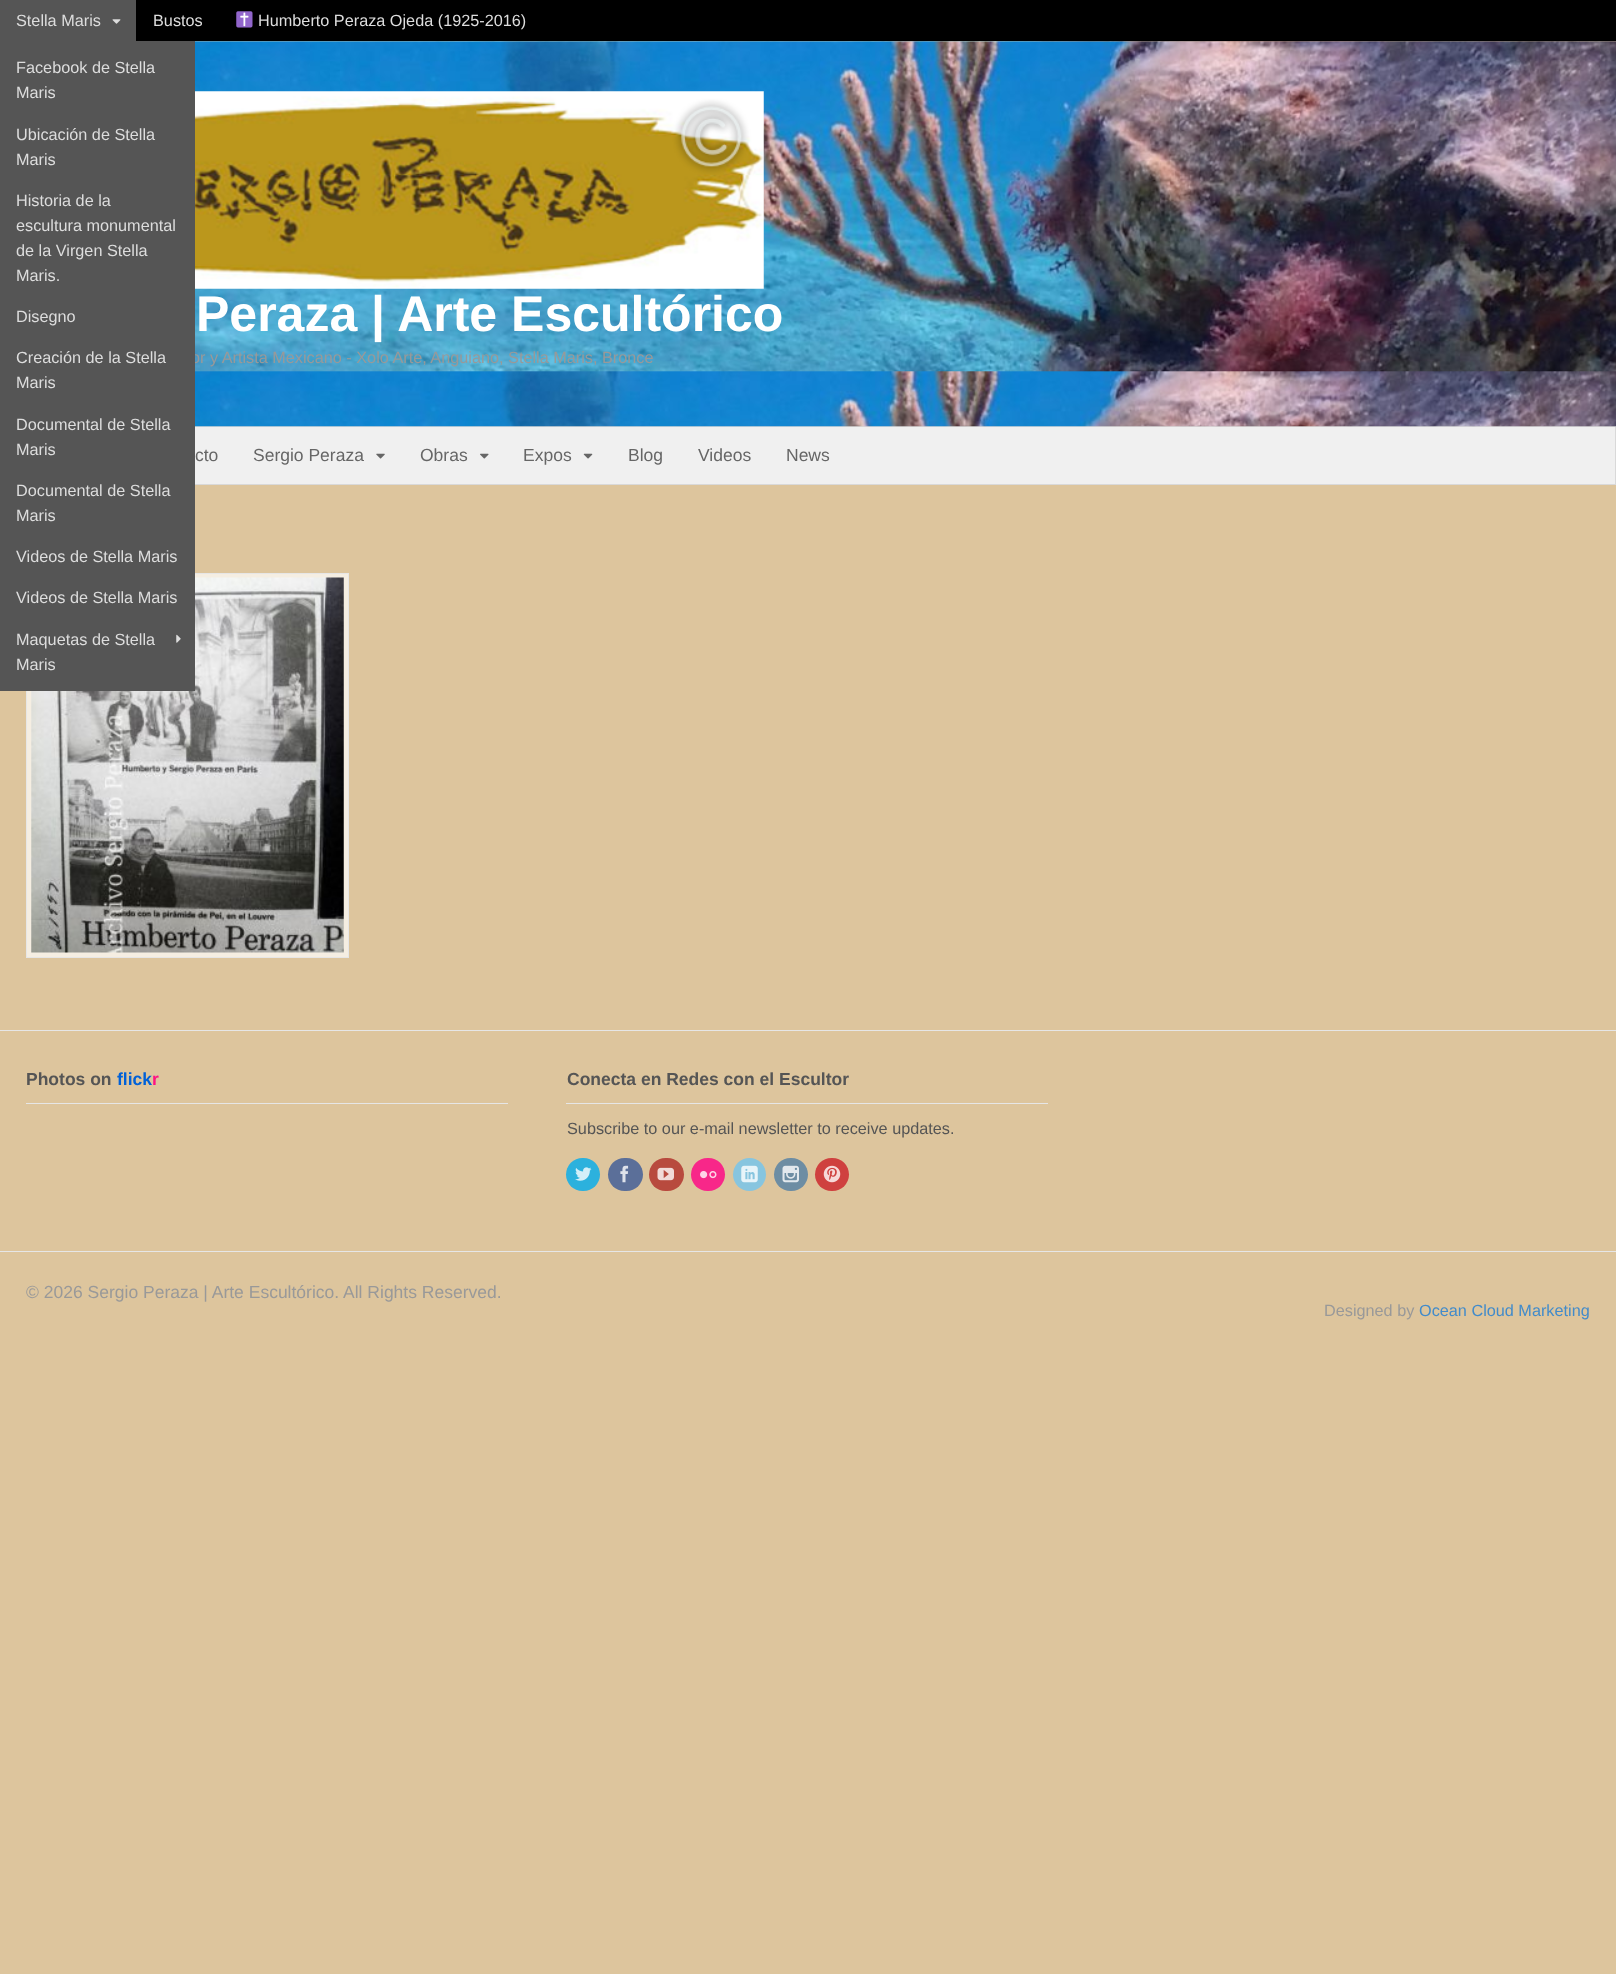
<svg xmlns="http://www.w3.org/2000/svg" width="1616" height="1974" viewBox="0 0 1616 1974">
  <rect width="100%" height="100%" fill="#ddc59d"/>
  <rect x="136" y="0" width="1480" height="41" fill="#000000"/>
  <rect x="0" y="0" width="136" height="41" fill="#555555"/>
  <text x="16" y="26" font-family="Liberation Sans" font-size="16.25" fill="#dddddd">Stella Maris</text>
  <image x="112" y="19" width="9" height="5" href="img1.png"/>
  <rect x="195" y="427" width="1420" height="57" fill="#f0f0f0"/>
  <rect x="0.5" y="426.5" width="1615" height="58" fill="none" stroke="#d9d9d9"/>
  <image x="195" y="41" width="1421" height="386" href="img4.png"/>
  <text x="191" y="363" font-family="Liberation Sans" font-size="16.25" fill="#999999">or y Artista Mexicano - Xolo Arte, Anguiano, Stella Maris, Bronce</text>
  <rect x="26.5" y="573.5" width="322" height="384" fill="#f5eee2" stroke="#e6e6e6"/>
  <image x="31" y="577" width="313" height="376" href="img9.png"/>
  <rect x="0" y="41" width="195" height="650" fill="#555555"/>
  <text x="16" y="73" font-family="Liberation Sans" font-size="16.25" fill="#dddddd">Facebook de Stella</text>
  <text x="16" y="98" font-family="Liberation Sans" font-size="16.25" fill="#dddddd">Maris</text>
  <text x="16" y="140" font-family="Liberation Sans" font-size="16.25" fill="#dddddd">Ubicación de Stella</text>
  <text x="16" y="165" font-family="Liberation Sans" font-size="16.25" fill="#dddddd">Maris</text>
  <text x="16" y="206" font-family="Liberation Sans" font-size="16.25" fill="#dddddd">Historia de la</text>
  <text x="16" y="231" font-family="Liberation Sans" font-size="16.25" fill="#dddddd">escultura monumental</text>
  <text x="16" y="256" font-family="Liberation Sans" font-size="16.25" fill="#dddddd">de la Virgen Stella</text>
  <text x="16" y="281" font-family="Liberation Sans" font-size="16.25" fill="#dddddd">Maris.</text>
  <text x="16" y="322" font-family="Liberation Sans" font-size="16.25" fill="#dddddd">Disegno</text>
  <text x="16" y="363" font-family="Liberation Sans" font-size="16.25" fill="#dddddd">Creación de la Stella</text>
  <text x="16" y="388" font-family="Liberation Sans" font-size="16.25" fill="#dddddd">Maris</text>
  <text x="16" y="430" font-family="Liberation Sans" font-size="16.25" fill="#dddddd">Documental de Stella</text>
  <text x="16" y="455" font-family="Liberation Sans" font-size="16.25" fill="#dddddd">Maris</text>
  <text x="16" y="496" font-family="Liberation Sans" font-size="16.25" fill="#dddddd">Documental de Stella</text>
  <text x="16" y="521" font-family="Liberation Sans" font-size="16.25" fill="#dddddd">Maris</text>
  <text x="16" y="562" font-family="Liberation Sans" font-size="16.25" fill="#dddddd">Videos de Stella Maris</text>
  <text x="16" y="603" font-family="Liberation Sans" font-size="16.25" fill="#dddddd">Videos de Stella Maris</text>
  <text x="16" y="645" font-family="Liberation Sans" font-size="16.25" fill="#dddddd">Maquetas de Stella</text>
  <image x="176" y="634" width="5" height="9" href="img2.png"/>
  <text x="16" y="670" font-family="Liberation Sans" font-size="16.25" fill="#dddddd">Maris</text>
  <text x="153" y="26" font-family="Liberation Sans" font-size="16.25" fill="#dddddd">Bustos</text>
  <image x="236" y="11" width="17" height="17" href="img3.png"/>
  <text x="258" y="26" font-family="Liberation Sans" font-size="16.25" fill="#dddddd">Humberto Peraza Ojeda (1925-2016)</text>
  <image x="195" y="91" width="569" height="198" href="img5.png"/>
  <text x="196" y="331" font-family="Liberation Sans" font-size="50" font-weight="bold" fill="#ffffff">Peraza | Arte Escultórico</text>
  <text x="195" y="461" font-family="Liberation Sans" font-size="17.5" fill="#666666">cto</text>
  <text x="253" y="461" font-family="Liberation Sans" font-size="17.5" fill="#666666">Sergio Peraza</text>
  <image x="376" y="453" width="9" height="6" href="img6.png"/>
  <text x="420" y="461" font-family="Liberation Sans" font-size="17.5" fill="#666666">Obras</text>
  <image x="480" y="453" width="9" height="6" href="img7.png"/>
  <text x="523" y="461" font-family="Liberation Sans" font-size="17.5" fill="#666666">Expos</text>
  <image x="583" y="453" width="10" height="6" href="img8.png"/>
  <text x="628" y="461" font-family="Liberation Sans" font-size="17.5" fill="#666666">Blog</text>
  <text x="698" y="461" font-family="Liberation Sans" font-size="17.5" fill="#666666">Videos</text>
  <text x="786" y="461" font-family="Liberation Sans" font-size="17.5" fill="#666666">News</text>
  <rect x="0" y="1030" width="1616" height="1" fill="#e6e6e6"/>
  <rect x="26" y="1103" width="482" height="1" fill="#e6e6e6"/>
  <text x="26" y="1085" font-family="Liberation Sans" font-size="17.5" font-weight="bold" fill="#555555">Photos on</text>
  <text x="117" y="1085" font-family="Liberation Sans" font-size="17.5" font-weight="bold" fill="#0061d8">flick</text>
  <text x="152" y="1085" font-family="Liberation Sans" font-size="17.5" font-weight="bold" fill="#ff1183">r</text>
  <rect x="566" y="1103" width="482" height="1" fill="#e6e6e6"/>
  <text x="567" y="1085" font-family="Liberation Sans" font-size="17.5" font-weight="bold" fill="#555555">Conecta en Redes con el Escultor</text>
  <text x="567" y="1134" font-family="Liberation Sans" font-size="16.25" fill="#555555">Subscribe to our e-mail newsletter to receive updates.</text>
  <rect x="566" y="1158" width="34" height="33" rx="16.5" fill="#2cb1dd"/>
  <image x="575" y="1167" width="17" height="14" href="img10.png"/>
  <rect x="608" y="1158" width="35" height="33" rx="16.5" fill="#5b6f99"/>
  <image x="620" y="1165" width="9" height="18" href="img11.png"/>
  <rect x="649" y="1158" width="35" height="33" rx="16.5" fill="#b84a3e"/>
  <image x="657" y="1167" width="17" height="14" href="img12.png"/>
  <rect x="691" y="1158" width="34" height="33" rx="16.5" fill="#f82789"/>
  <image x="700" y="1171" width="17" height="8" href="img13.png"/>
  <circle cx="749.5" cy="1174.5" r="16.5" fill="#87c5df"/>
  <image x="741" y="1165" width="17" height="18" href="img14.png"/>
  <rect x="774" y="1158" width="34" height="33" rx="16.5" fill="#6d8da3"/>
  <image x="782" y="1165" width="17" height="18" href="img15.png"/>
  <rect x="815" y="1158" width="34" height="33" rx="16.5" fill="#cf413f"/>
  <image x="823" y="1165" width="18" height="18" href="img16.png"/>
  <rect x="0" y="1251" width="1616" height="1" fill="#e6e6e6"/>
  <text x="26" y="1298" font-family="Liberation Sans" font-size="17.5" fill="#999999">© 2026 Sergio Peraza | Arte Escultórico. All Rights Reserved.</text>
  <text x="1324" y="1316" font-family="Liberation Sans" font-size="16.25" fill="#999999">Designed by</text>
  <text x="1419" y="1316" font-family="Liberation Sans" font-size="16.25" fill="#428bca">Ocean Cloud Marketing</text>
</svg>
